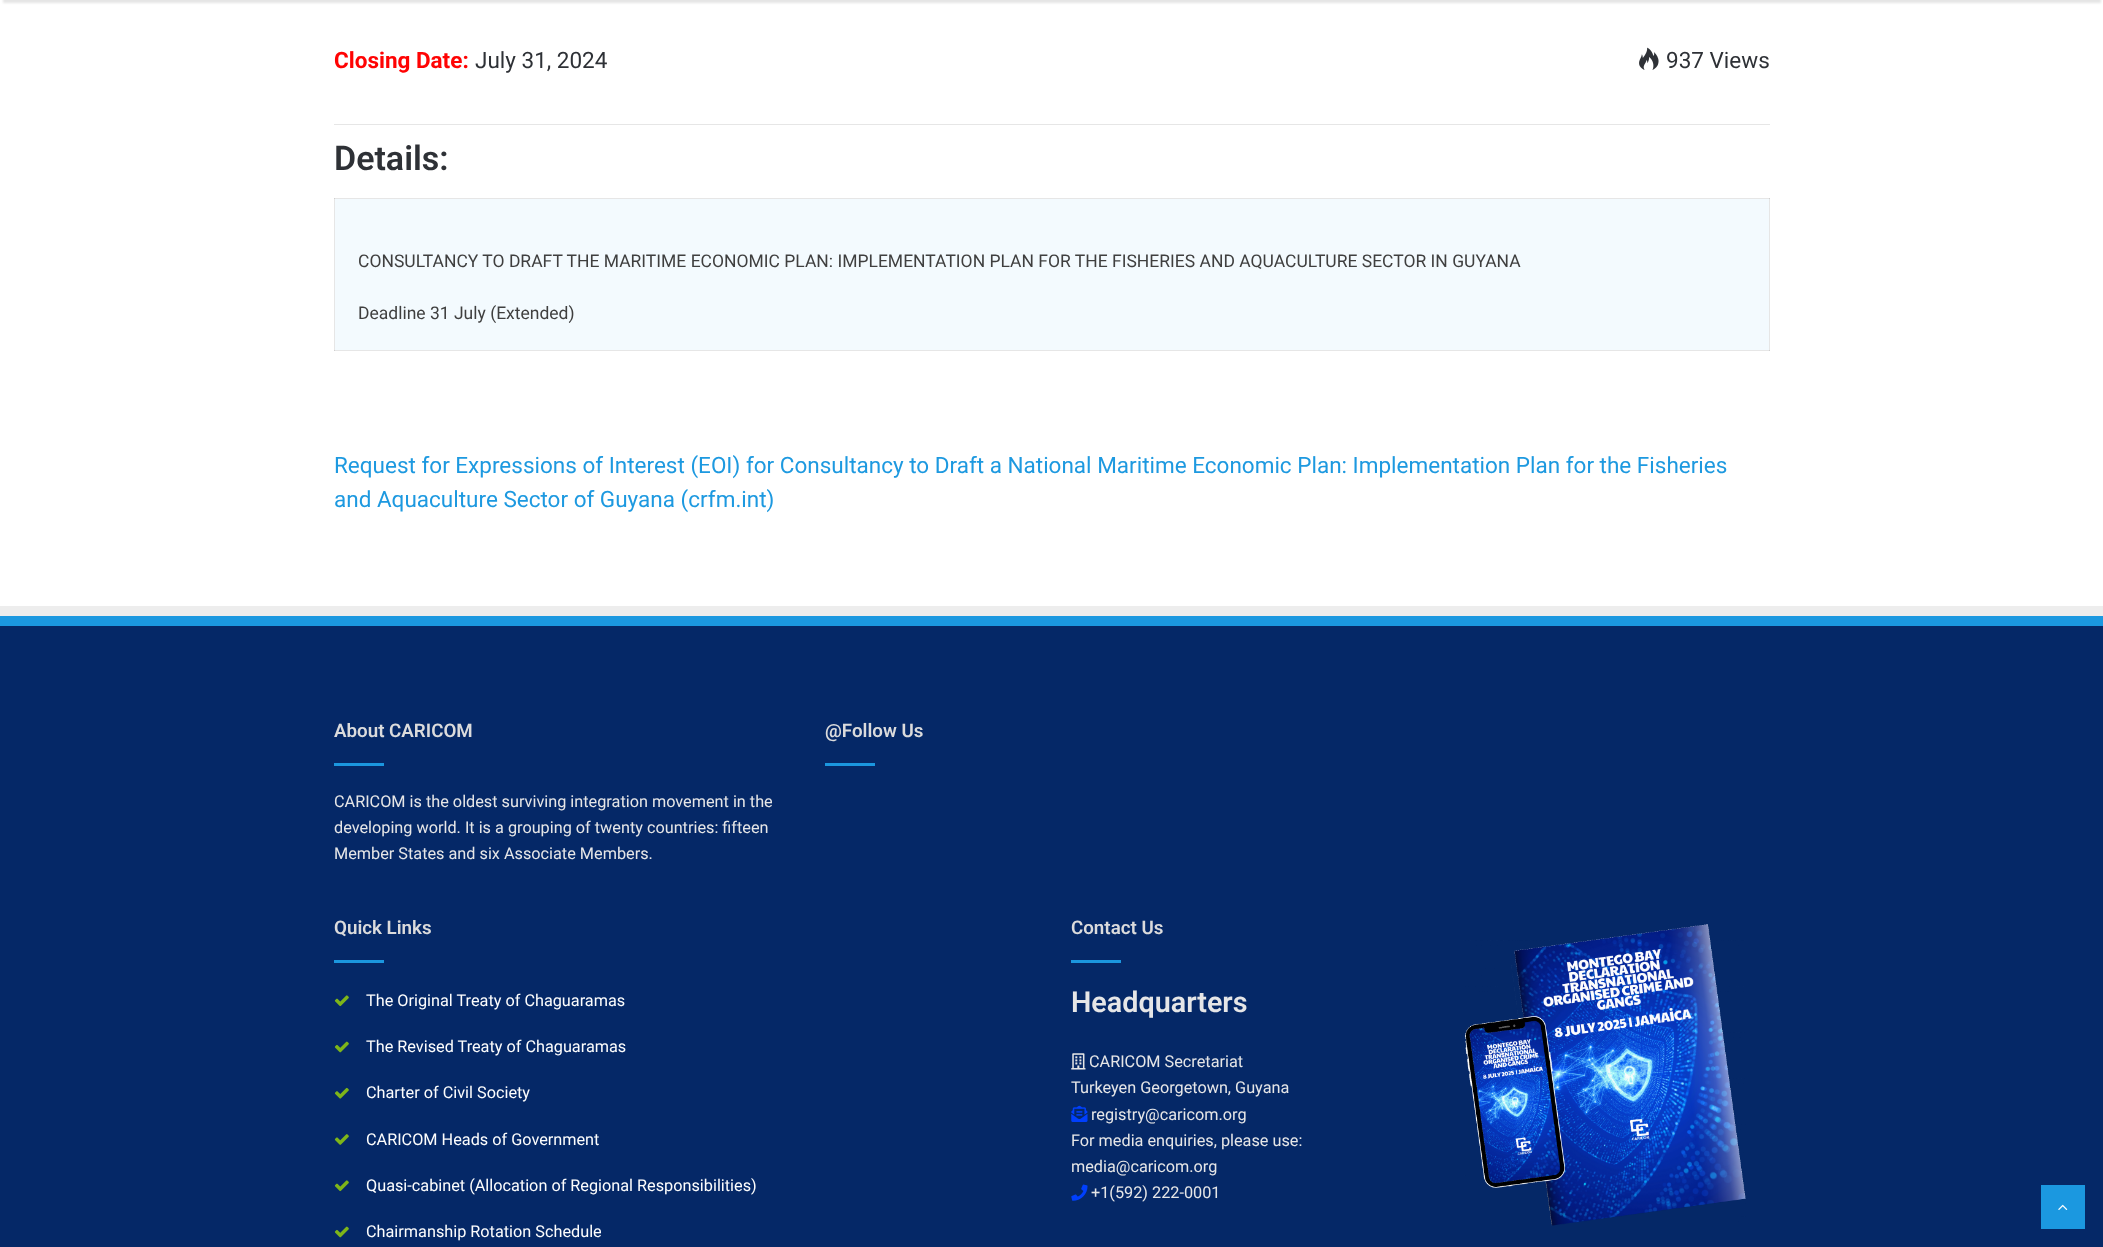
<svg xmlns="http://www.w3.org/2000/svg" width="2103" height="1247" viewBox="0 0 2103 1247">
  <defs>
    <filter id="blur1" x="-50%" y="-200%" width="200%" height="500%"><feGaussianBlur stdDeviation="1"/></filter>
  </defs>
  <rect width="100%" height="100%" fill="#ffffff"/>
  <rect x="334" y="198" width="1" height="153" fill="#e6e6e6"/>
  <rect x="334" y="350" width="1436" height="1" fill="#e6e6e6"/>
  <rect x="334" y="350" width="1" height="1" fill="#cfcfcf"/>
  <rect x="1769" y="198" width="1" height="153" fill="#e6e6e6"/>
  <rect x="1769" y="350" width="1" height="1" fill="#cfcfcf"/>
  <rect x="3" y="-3" width="2098" height="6" fill="#000000" fill-opacity="0.1" filter="url(#blur1)"/>
  <text x="334" y="68" font-family="Roboto" font-size="22.5" font-weight="bold" fill="#ff0303">Closing Date:</text>
  <text x="475" y="68" font-family="Roboto" font-size="22.5" fill="#2e3136">July 31, 2024</text>
  <image x="1639" y="47" width="20" height="23" href="img1.png"/>
  <text x="1666" y="68" font-family="Roboto" font-size="22.5" fill="#2e3136">937 Views</text>
  <rect x="334" y="124" width="1436" height="1" fill="#e6e6e6"/>
  <text x="334" y="170" font-family="Roboto" font-size="34" font-weight="600" fill="#2e3136">Details:</text>
  <rect x="335" y="199" width="1434" height="151" fill="#f3fafe"/>
  <rect x="334" y="198" width="1436" height="1" fill="#e6e6e6"/>
  <rect x="334" y="198" width="1" height="1" fill="#cfcfcf"/>
  <rect x="1769" y="198" width="1" height="1" fill="#cfcfcf"/>
  <text x="358" y="267" font-family="Roboto" font-size="17.5" fill="#3f3f3f">CONSULTANCY TO DRAFT THE MARITIME ECONOMIC PLAN: IMPLEMENTATION PLAN FOR THE FISHERIES AND AQUACULTURE SECTOR IN GUYANA</text>
  <text x="358" y="319" font-family="Roboto" font-size="17.5" fill="#3f3f3f">Deadline 31 July (Extended)</text>
  <text x="334" y="473" font-family="Roboto" font-size="22.5" fill="#1d99e0">Request for Expressions of Interest (EOI) for Consultancy to Draft a National Maritime Economic Plan: Implementation Plan for the Fisheries</text>
  <text x="334" y="507" font-family="Roboto" font-size="22.5" fill="#1d99e0">and Aquaculture Sector of Guyana (crfm.int)</text>
  <rect x="0" y="626" width="2103" height="621" fill="#052867"/>
  <path d="M0 606V616H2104V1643V606Z" fill="#ededed"/>
  <rect x="0" y="616" width="2103" height="10" fill="#1b98e0"/>
  <text x="334" y="737" font-family="Roboto" font-size="18.75" font-weight="600" fill="#dbdbdc">About CARICOM</text>
  <rect x="334" y="763" width="50" height="3" fill="#1b97df"/>
  <text x="334" y="807" font-family="Roboto" font-size="16.25" fill="#e6e6e7">CARICOM is the oldest surviving integration movement in the</text>
  <text x="334" y="833" font-family="Roboto" font-size="16.25" fill="#e6e6e7">developing world. It is a grouping of twenty countries: fifteen</text>
  <text x="334" y="859" font-family="Roboto" font-size="16.25" fill="#e6e6e7">Member States and six Associate Members.</text>
  <text x="825" y="737" font-family="Roboto" font-size="18.75" font-weight="600" fill="#dbdbdc">@Follow Us</text>
  <rect x="825" y="763" width="50" height="3" fill="#1b97df"/>
  <text x="334" y="934" font-family="Roboto" font-size="18.75" font-weight="600" fill="#dbdbdc">Quick Links</text>
  <rect x="334" y="960" width="50" height="3" fill="#1b97df"/>
  <image x="334" y="995" width="15" height="12" href="img2.png"/>
  <text x="366" y="1006" font-family="Roboto" font-size="16.25" fill="#fdfdfd">The Original Treaty of Chaguaramas</text>
  <image x="334" y="1041" width="15" height="12" href="img3.png"/>
  <text x="366" y="1052" font-family="Roboto" font-size="16.25" fill="#fdfdfd">The Revised Treaty of Chaguaramas</text>
  <image x="334" y="1087" width="15" height="12" href="img4.png"/>
  <text x="366" y="1098" font-family="Roboto" font-size="16.25" fill="#fdfdfd">Charter of Civil Society</text>
  <image x="334" y="1134" width="15" height="11" href="img5.png"/>
  <text x="366" y="1145" font-family="Roboto" font-size="16.25" fill="#fdfdfd">CARICOM Heads of Government</text>
  <image x="334" y="1180" width="15" height="12" href="img2.png"/>
  <text x="366" y="1191" font-family="Roboto" font-size="16.25" fill="#fdfdfd">Quasi-cabinet (Allocation of Regional Responsibilities)</text>
  <image x="334" y="1226" width="15" height="12" href="img3.png"/>
  <text x="366" y="1237" font-family="Roboto" font-size="16.25" fill="#fdfdfd">Chairmanship Rotation Schedule</text>
  <text x="1071" y="934" font-family="Roboto" font-size="18.75" font-weight="600" fill="#dbdbdc">Contact Us</text>
  <rect x="1071" y="960" width="50" height="3" fill="#1b97df"/>
  <text x="1071" y="1012" font-family="Roboto" font-size="28.75" font-weight="600" fill="#e6e6e7">Headquarters</text>
  <image x="1071" y="1053" width="15" height="17" href="img6.png"/>
  <text x="1089" y="1067" font-family="Roboto" font-size="16.25" fill="#e6e6e7">CARICOM Secretariat</text>
  <text x="1071" y="1093" font-family="Roboto" font-size="16.25" fill="#e6e6e7">Turkeyen Georgetown, Guyana</text>
  <image x="1071" y="1105" width="17" height="17" href="img7.png"/>
  <text x="1091" y="1120" font-family="Roboto" font-size="16.25" fill="#e6e6e7">registry@caricom.org</text>
  <text x="1071" y="1146" font-family="Roboto" font-size="16.25" fill="#e6e6e7">For media enquiries, please use:</text>
  <text x="1071" y="1172" font-family="Roboto" font-size="16.25" fill="#e6e6e7">media@caricom.org</text>
  <image x="1071" y="1184" width="17" height="17" href="img8.png"/>
  <text x="1091" y="1198" font-family="Roboto" font-size="16.25" fill="#e6e6e7">+1(592) 222-0001</text>
  <image x="1463" y="924" width="283" height="302" href="img9.png"/>
  <rect x="2041" y="1185" width="44" height="44" fill="#1b98e0"/>
  <image x="2058" y="1204" width="10" height="6" href="img10.png"/>
</svg>
